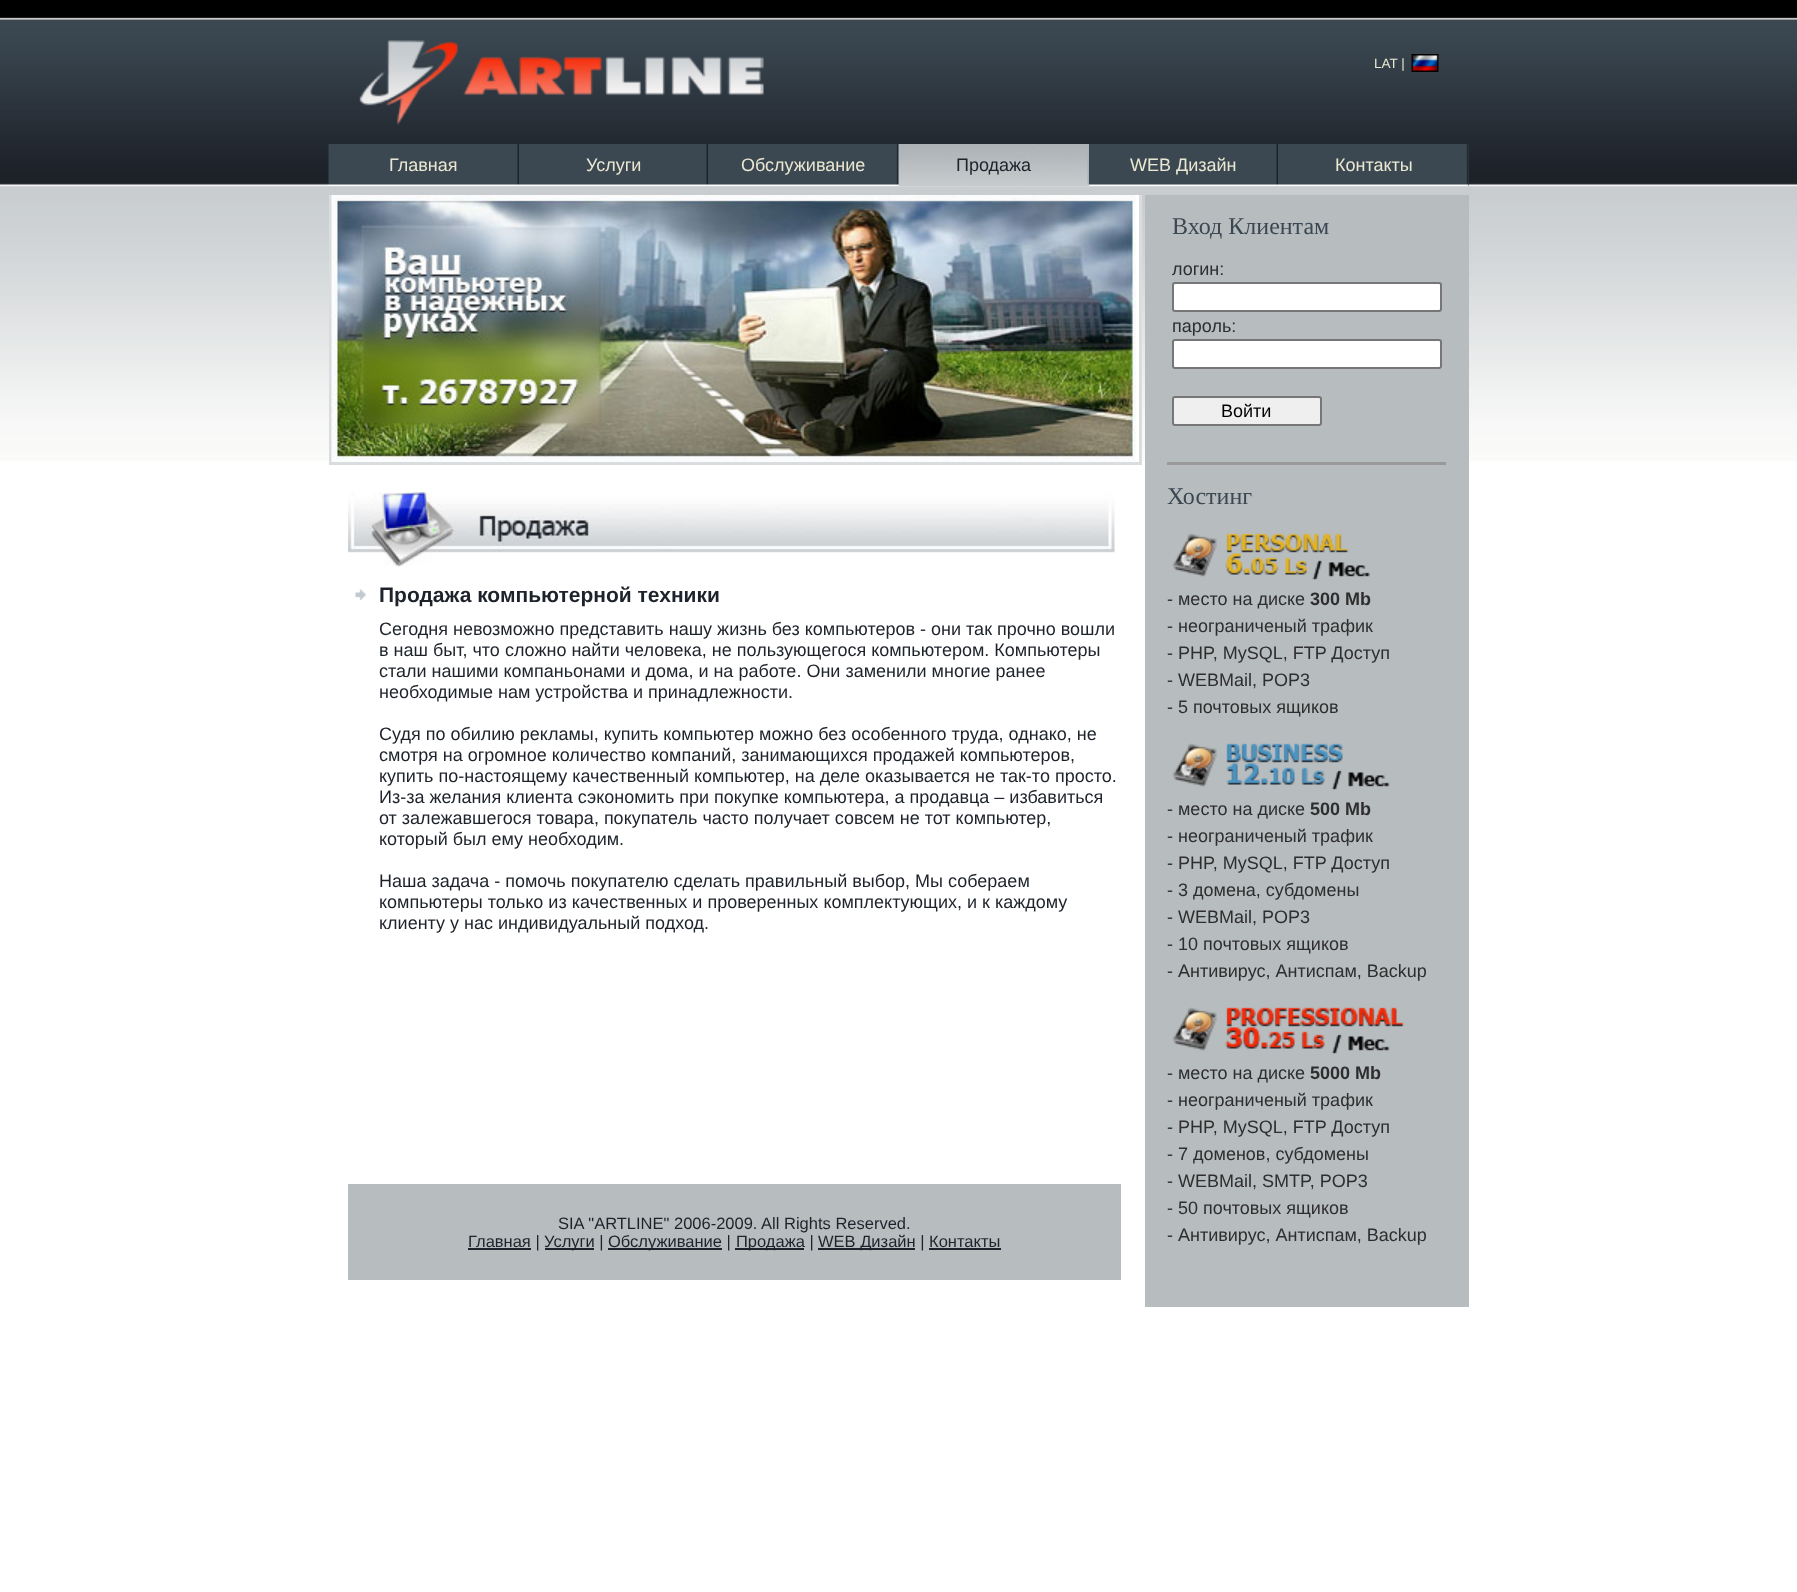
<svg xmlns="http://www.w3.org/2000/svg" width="1797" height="1592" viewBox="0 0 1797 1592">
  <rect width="100%" height="100%" fill="#ffffff"/>
  <image x="0" y="0" width="1797" height="461" href="img1.png"/>
  <image x="359" y="40" width="405" height="85" href="img2.png"/>
  <text x="1374" y="68" font-family="Liberation Sans" font-size="13.5" fill="#eae7d2">LAT |</text>
  <image x="1411" y="54" width="28" height="18" href="img3.png"/>
  <image x="328" y="144" width="191" height="42" href="img4.png"/>
  <text x="389" y="171" font-family="Liberation Sans" font-size="18" fill="#eae7d2">Главная</text>
  <image x="519" y="144" width="189" height="42" href="img5.png"/>
  <text x="586" y="171" font-family="Liberation Sans" font-size="18" fill="#eae7d2">Услуги</text>
  <image x="708" y="144" width="191" height="42" href="img6.png"/>
  <text x="741" y="171" font-family="Liberation Sans" font-size="18" fill="#eae7d2">Обслуживание</text>
  <image x="898" y="144" width="191" height="42" href="img7.png"/>
  <text x="956" y="171" font-family="Liberation Sans" font-size="18" fill="#1e232b">Продажа</text>
  <image x="1089" y="144" width="189" height="42" href="img5.png"/>
  <text x="1130" y="171" font-family="Liberation Sans" font-size="18" fill="#eae7d2">WEB Дизайн</text>
  <rect x="1468" y="144" width="1" height="42" fill="#3b4851"/>
  <image x="1278" y="144" width="191" height="42" href="img6.png"/>
  <text x="1335" y="171" font-family="Liberation Sans" font-size="18" fill="#eae7d2">Контакты</text>
  <rect x="1136" y="195" width="3" height="267" fill="#ffffff"/>
  <rect x="1139" y="195" width="3" height="270" fill="#daddde"/>
  <rect x="329" y="462" width="813" height="3" fill="#daddde"/>
  <rect x="329" y="195" width="3" height="270" fill="#daddde"/>
  <image x="331" y="195" width="805" height="267" href="img8.png"/>
  <image x="348" y="492" width="767" height="75" href="img9.png"/>
  <image x="355" y="589" width="11" height="11" href="img10.png"/>
  <text x="379" y="602" font-family="Liberation Sans" font-size="21" font-weight="bold" fill="#1e232b">Продажа компьютерной техники</text>
  <text x="379" y="635" font-family="Liberation Sans" font-size="18" fill="#1e232b">Сегодня невозможно представить нашу жизнь без компьютеров - они так прочно вошли</text>
  <text x="379" y="656" font-family="Liberation Sans" font-size="18" fill="#1e232b">в наш быт, что сложно найти человека, не пользующегося компьютером. Компьютеры</text>
  <text x="379" y="677" font-family="Liberation Sans" font-size="18" fill="#1e232b">стали нашими компаньонами и дома, и на работе. Они заменили многие ранее</text>
  <text x="379" y="698" font-family="Liberation Sans" font-size="18" fill="#1e232b">необходимые нам устройства и принадлежности.</text>
  <text x="379" y="740" font-family="Liberation Sans" font-size="18" fill="#1e232b">Судя по обилию рекламы, купить компьютер можно без особенного труда, однако, не</text>
  <text x="379" y="761" font-family="Liberation Sans" font-size="18" fill="#1e232b">смотря на огромное количество компаний, занимающихся продажей компьютеров,</text>
  <text x="379" y="782" font-family="Liberation Sans" font-size="18" fill="#1e232b">купить по-настоящему качественный компьютер, на деле оказывается не так-то просто.</text>
  <text x="379" y="803" font-family="Liberation Sans" font-size="18" fill="#1e232b">Из-за желания клиента сэкономить при покупке компьютера, а продавца – избавиться</text>
  <text x="379" y="824" font-family="Liberation Sans" font-size="18" fill="#1e232b">от залежавшегося товара, покупатель часто получает совсем не тот компьютер,</text>
  <text x="379" y="845" font-family="Liberation Sans" font-size="18" fill="#1e232b">который был ему необходим.</text>
  <text x="379" y="887" font-family="Liberation Sans" font-size="18" fill="#1e232b">Наша задача - помочь покупателю сделать правильный выбор, Мы собераем</text>
  <text x="379" y="908" font-family="Liberation Sans" font-size="18" fill="#1e232b">компьютеры только из качественных и проверенных комплектующих, и к каждому</text>
  <text x="379" y="929" font-family="Liberation Sans" font-size="18" fill="#1e232b">клиенту у нас индивидуальный подход.</text>
  <rect x="348" y="1184" width="773" height="96" fill="#b7bcbf"/>
  <text x="558" y="1229" font-family="Liberation Sans" font-size="16.5" fill="#1e232b">SIA "ARTLINE" 2006-2009. All Rights Reserved.</text>
  <rect x="468" y="1248" width="63" height="2" fill="#1e232b"/>
  <text x="468" y="1247" font-family="Liberation Sans" font-size="16.5" fill="#1e232b">Главная |</text>
  <rect x="545" y="1248" width="49" height="2" fill="#1e232b"/>
  <text x="544" y="1247" font-family="Liberation Sans" font-size="16.5" fill="#1e232b">Услуги |</text>
  <rect x="608" y="1248" width="114" height="2" fill="#1e232b"/>
  <text x="608" y="1247" font-family="Liberation Sans" font-size="16.5" fill="#1e232b">Обслуживание |</text>
  <rect x="735" y="1248" width="69" height="2" fill="#1e232b"/>
  <text x="736" y="1247" font-family="Liberation Sans" font-size="16.5" fill="#1e232b">Продажа |</text>
  <rect x="818" y="1248" width="97" height="2" fill="#1e232b"/>
  <text x="818" y="1247" font-family="Liberation Sans" font-size="16.5" fill="#1e232b">WEB Дизайн | Контакты</text>
  <rect x="929" y="1248" width="72" height="2" fill="#1e232b"/>
  <rect x="1145" y="195" width="324" height="1112" fill="#b7bcbf"/>
  <text x="1172" y="234" font-family="Liberation Serif" font-size="24" fill="#3b4851">Вход Клиентам</text>
  <text x="1172" y="275" font-family="Liberation Sans" font-size="18" fill="#2e2e2e">логин:</text>
  <rect x="1173" y="283" width="268" height="28" rx="2" fill="#ffffff" stroke="#767676" stroke-width="2"/>
  <text x="1172" y="332" font-family="Liberation Sans" font-size="18" fill="#2e2e2e">пароль:</text>
  <rect x="1173" y="340" width="268" height="28" rx="2" fill="#ffffff" stroke="#767676" stroke-width="2"/>
  <rect x="1173" y="397" width="148" height="28" rx="2" fill="#efefef" stroke="#767676" stroke-width="2"/>
  <text x="1221" y="417" font-family="Liberation Sans" font-size="18" fill="#000000">Войти</text>
  <rect x="1167" y="462" width="279" height="3" fill="#999999"/>
  <text x="1167" y="504" font-family="Liberation Serif" font-size="24" fill="#3b4851">Хостинг</text>
  <image x="1172" y="533" width="198" height="47" href="img11.png"/>
  <text x="1167" y="605" font-family="Liberation Sans" font-size="18" fill="#2e2e2e">- место на диске</text>
  <text x="1310" y="605" font-family="Liberation Sans" font-size="18" font-weight="bold" fill="#2e2e2e">300 Mb</text>
  <text x="1167" y="632" font-family="Liberation Sans" font-size="18" fill="#2e2e2e">- неограниченый трафик</text>
  <text x="1167" y="659" font-family="Liberation Sans" font-size="18" fill="#2e2e2e">- PHP, MySQL, FTP Доступ</text>
  <text x="1167" y="686" font-family="Liberation Sans" font-size="18" fill="#2e2e2e">- WEBMail, POP3</text>
  <text x="1167" y="713" font-family="Liberation Sans" font-size="18" fill="#2e2e2e">- 5 почтовых ящиков</text>
  <image x="1172" y="743" width="218" height="47" href="img12.png"/>
  <text x="1167" y="815" font-family="Liberation Sans" font-size="18" fill="#2e2e2e">- место на диске</text>
  <text x="1310" y="815" font-family="Liberation Sans" font-size="18" font-weight="bold" fill="#2e2e2e">500 Mb</text>
  <text x="1167" y="842" font-family="Liberation Sans" font-size="18" fill="#2e2e2e">- неограниченый трафик</text>
  <text x="1167" y="869" font-family="Liberation Sans" font-size="18" fill="#2e2e2e">- PHP, MySQL, FTP Доступ</text>
  <text x="1167" y="896" font-family="Liberation Sans" font-size="18" fill="#2e2e2e">- 3 домена, субдомены</text>
  <text x="1167" y="923" font-family="Liberation Sans" font-size="18" fill="#2e2e2e">- WEBMail, POP3</text>
  <text x="1167" y="950" font-family="Liberation Sans" font-size="18" fill="#2e2e2e">- 10 почтовых ящиков</text>
  <text x="1167" y="977" font-family="Liberation Sans" font-size="18" fill="#2e2e2e">- Антивирус, Антиспам, Backup</text>
  <image x="1172" y="1007" width="233" height="47" href="img13.png"/>
  <text x="1167" y="1079" font-family="Liberation Sans" font-size="18" fill="#2e2e2e">- место на диске</text>
  <text x="1310" y="1079" font-family="Liberation Sans" font-size="18" font-weight="bold" fill="#2e2e2e">5000 Mb</text>
  <text x="1167" y="1106" font-family="Liberation Sans" font-size="18" fill="#2e2e2e">- неограниченый трафик</text>
  <text x="1167" y="1133" font-family="Liberation Sans" font-size="18" fill="#2e2e2e">- PHP, MySQL, FTP Доступ</text>
  <text x="1167" y="1160" font-family="Liberation Sans" font-size="18" fill="#2e2e2e">- 7 доменов, субдомены</text>
  <text x="1167" y="1187" font-family="Liberation Sans" font-size="18" fill="#2e2e2e">- WEBMail, SMTP, POP3</text>
  <text x="1167" y="1214" font-family="Liberation Sans" font-size="18" fill="#2e2e2e">- 50 почтовых ящиков</text>
  <text x="1167" y="1241" font-family="Liberation Sans" font-size="18" fill="#2e2e2e">- Антивирус, Антиспам, Backup</text>
</svg>
